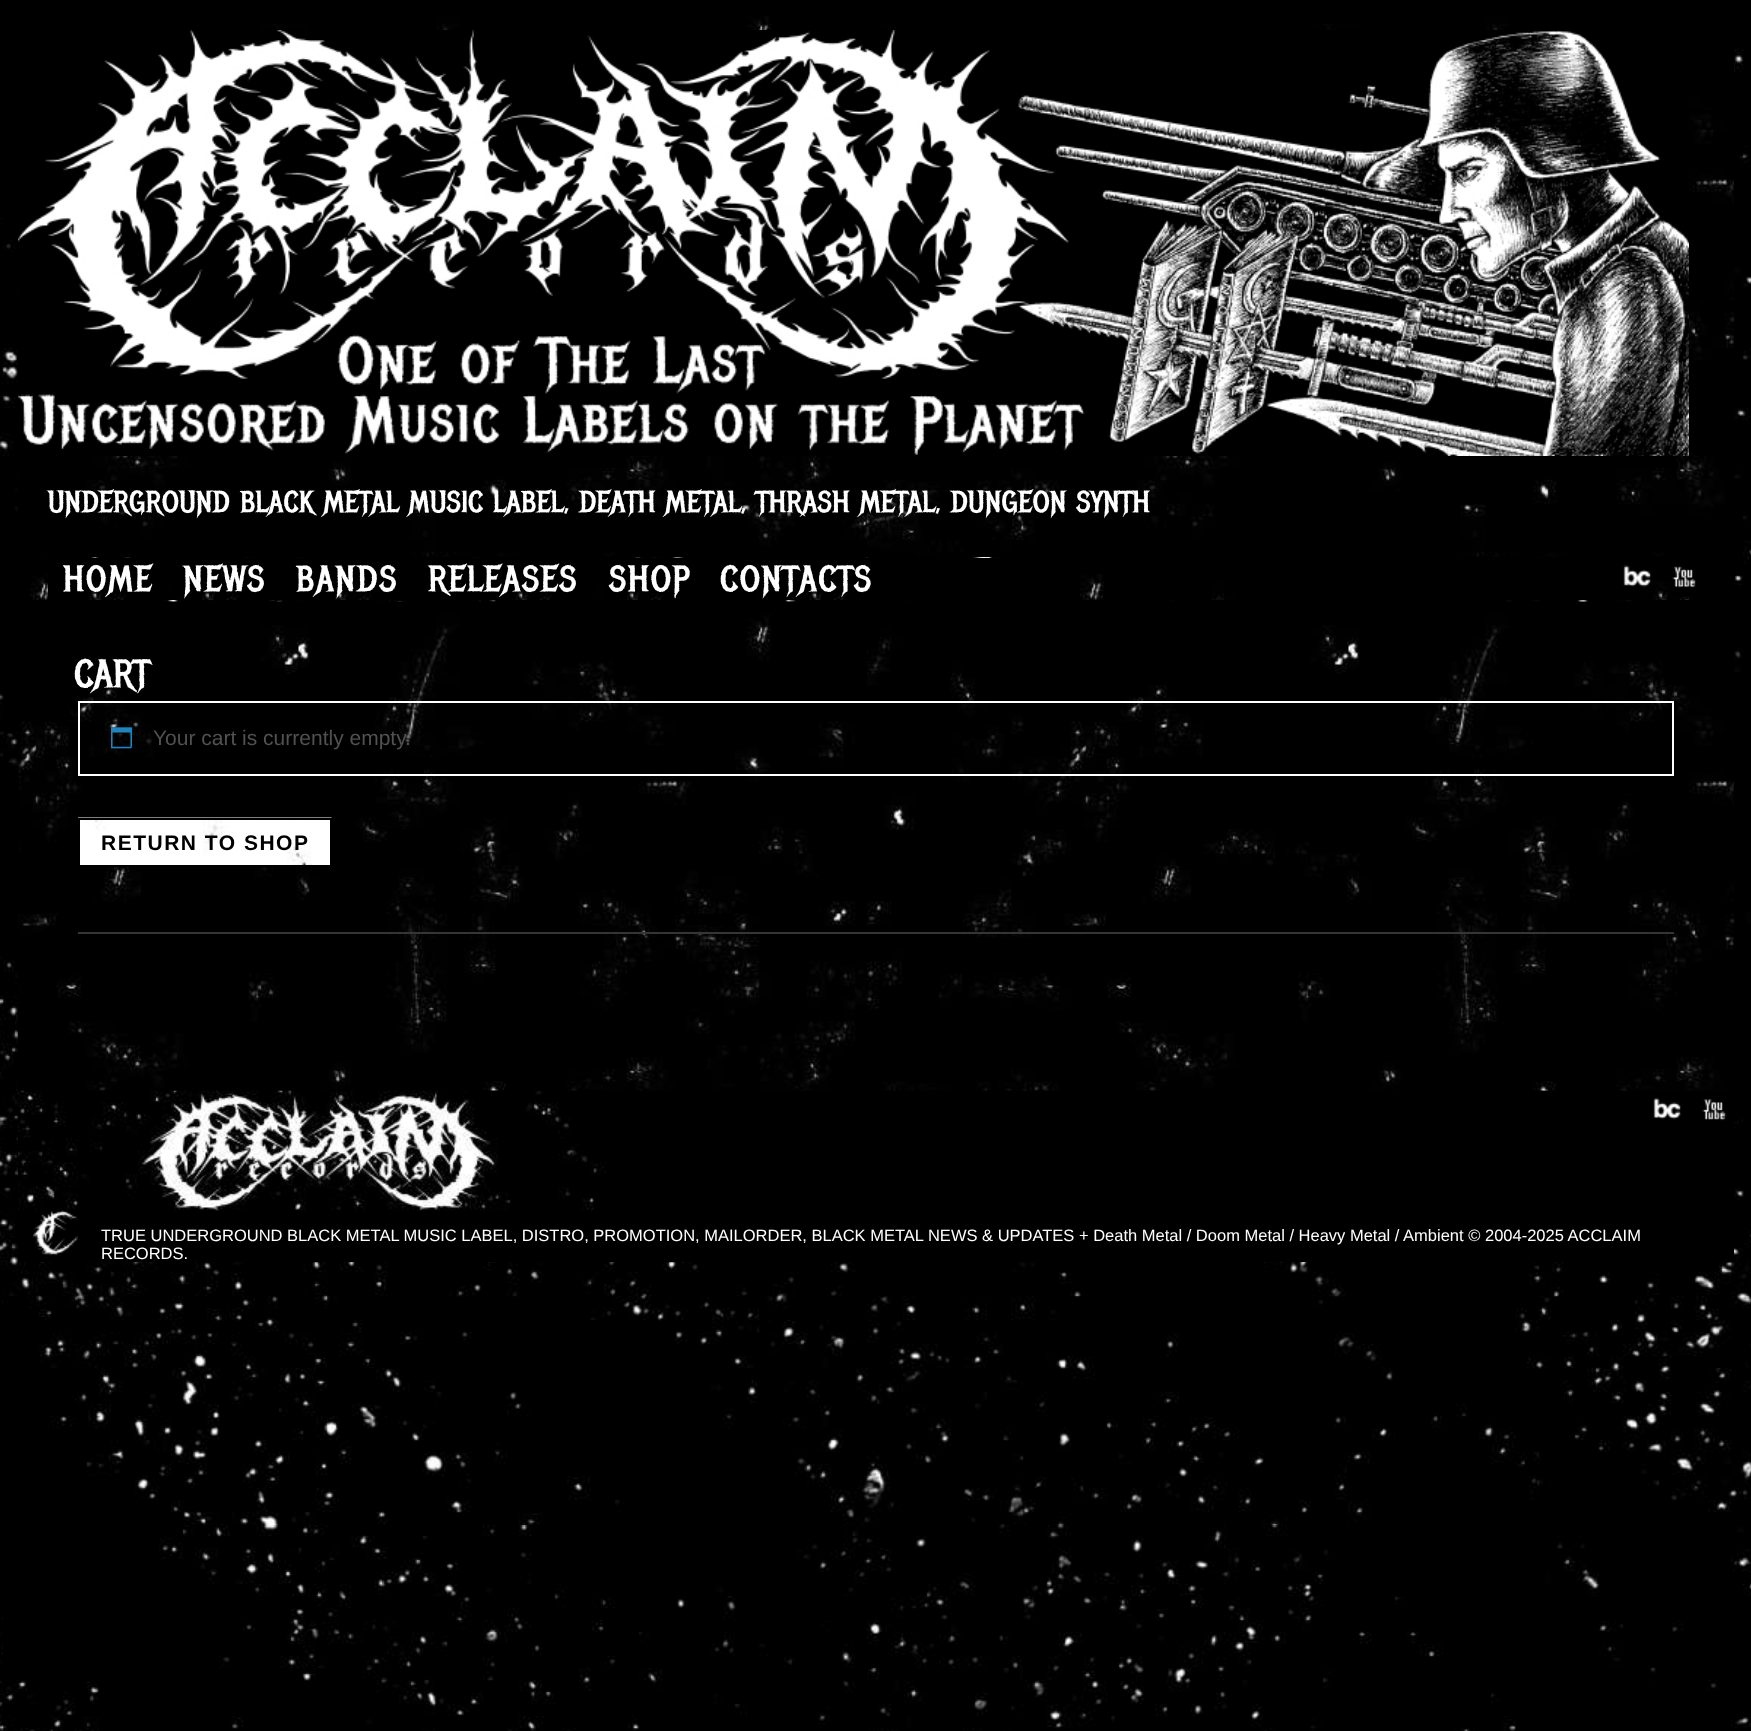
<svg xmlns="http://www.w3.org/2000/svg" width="1751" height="1731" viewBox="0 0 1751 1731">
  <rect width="100%" height="100%" fill="#ffffff"/>
  <image x="0" y="0" width="1751" height="1731" href="img1.png"/>
  <rect x="18" y="0" width="1716" height="557" fill="#000000"/>
  <image x="18" y="16" width="1716" height="541" href="img2.png"/>
  <image x="18" y="30" width="1671" height="426" href="img3.png"/>
  <text x="48" y="512" font-family="Metal Mania" font-size="30" letter-spacing="0.15" fill="#ffffff">UNDERGROUND BLACK METAL MUSIC LABEL, DEATH METAL, THRASH METAL, DUNGEON SYNTH</text>
  <rect x="39" y="558" width="1695" height="42" fill="#000000"/>
  <image x="30" y="574" width="1662" height="26" href="img4.png"/>
  <rect x="48" y="574" width="120" height="26" fill="#000000"/>
  <image x="89" y="582" width="37" height="18" href="img5.png"/>
  <text x="63" y="591" font-family="Metal Mania" font-size="36" letter-spacing="1.5" fill="#ffffff">HOME</text>
  <rect x="168" y="593" width="7" height="7" fill="#000000"/>
  <image x="202" y="582" width="37" height="18" href="img6.png"/>
  <text x="183" y="591" font-family="Metal Mania" font-size="36" letter-spacing="1.5" fill="#ffffff">NEWS</text>
  <image x="335" y="582" width="37" height="18" href="img7.png"/>
  <text x="296" y="591" font-family="Metal Mania" font-size="36" letter-spacing="1.5" fill="#ffffff">BANDS</text>
  <image x="515" y="582" width="37" height="18" href="img8.png"/>
  <text x="428" y="591" font-family="Metal Mania" font-size="36" letter-spacing="1.5" fill="#ffffff">RELEASES</text>
  <rect x="603" y="582" width="39" height="18" fill="#000000"/>
  <image x="627" y="582" width="36" height="18" href="img9.png"/>
  <text x="609" y="591" font-family="Metal Mania" font-size="36" letter-spacing="1.5" fill="#ffffff">SHOP</text>
  <rect x="768" y="582" width="24" height="18" fill="#000000"/>
  <image x="809" y="582" width="37" height="18" href="img10.png"/>
  <text x="720" y="591" font-family="Metal Mania" font-size="36" letter-spacing="1.5" fill="#ffffff">CONTACTS</text>
  <image x="1623" y="565" width="28" height="22" href="img11.png"/>
  <image x="1672" y="566" width="24" height="31" href="img12.png"/>
  <rect x="18" y="1090" width="1653" height="1" fill="#000000"/>
  <image x="18" y="601" width="1716" height="490" href="img13.png"/>
  <text x="74" y="687" font-family="Metal Mania" font-size="39" fill="#ffffff">CART</text>
  <rect x="79" y="702" width="1594" height="73" fill="none" stroke="#ffffff" stroke-width="2"/>
  <image x="111" y="727" width="21" height="22" href="img14.png"/>
  <text x="153" y="745" font-family="Liberation Sans" font-size="21" fill="#515151">Your cart is currently empty.</text>
  <image x="78" y="817" width="254" height="48" href="img15.png"/>
  <rect x="79" y="819" width="252" height="47" fill="none" stroke="#000000" stroke-width="2"/>
  <text x="101" y="850" font-family="Liberation Sans" font-size="21" font-weight="bold" letter-spacing="1.5" fill="#000000">RETURN TO SHOP</text>
  <rect x="78" y="932" width="1596" height="2" fill="#353535"/>
  <rect x="18" y="1091" width="1716" height="171" fill="#000000"/>
  <image x="18" y="1090" width="588" height="121" href="img16.png"/>
  <image x="1653" y="1097" width="28" height="23" href="img17.png"/>
  <image x="1702" y="1099" width="24" height="22" href="img18.png"/>
  <image x="33" y="1210" width="45" height="46" href="img19.png"/>
  <text x="101" y="1241" font-family="Liberation Sans" font-size="16.5" fill="#ffffff">TRUE UNDERGROUND BLACK METAL MUSIC LABEL, DISTRO, PROMOTION, MAILORDER, BLACK METAL NEWS &amp; UPDATES + Death Metal / Doom Metal / Heavy Metal / Ambient © 2004-2025 ACCLAIM</text>
  <text x="101" y="1259" font-family="Liberation Sans" font-size="16.5" fill="#ffffff">RECORDS.</text>
</svg>
